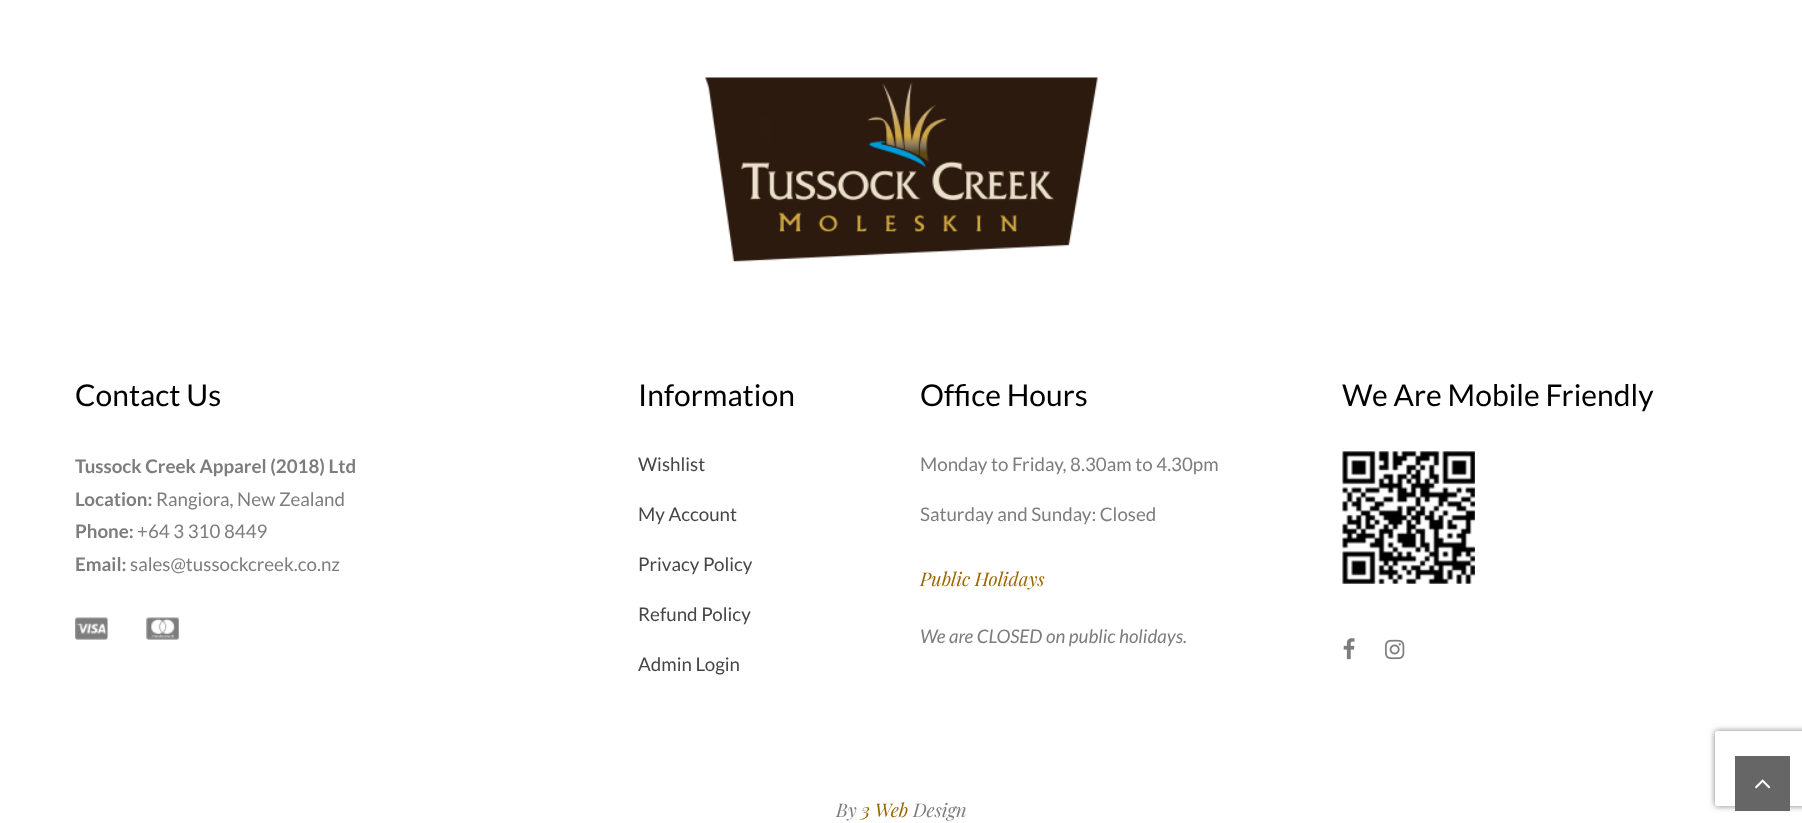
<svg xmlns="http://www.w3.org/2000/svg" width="1802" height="823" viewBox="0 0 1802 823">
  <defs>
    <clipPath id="clip1"><path d="M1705 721H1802V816H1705ZM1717.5 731H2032.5C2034 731 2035 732 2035 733.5V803.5C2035 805 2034 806 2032.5 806H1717.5C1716 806 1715 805 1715 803.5V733.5C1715 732 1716 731 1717.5 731Z" clip-rule="evenodd"/></clipPath>
    <filter id="blur1" x="-50%" y="-200%" width="200%" height="500%"><feGaussianBlur stdDeviation="3"/></filter>
  </defs>
  <rect width="100%" height="100%" fill="#ffffff"/>
  <image x="705" y="77" width="393" height="185" href="img1.png"/>
  <text x="75" y="406" font-family="Lato" font-size="30" fill="#000000">Contact Us</text>
  <text x="75" y="473" font-family="Lato" font-size="18.75" font-weight="bold" fill="#7d7d7d">Tussock Creek Apparel (2018) Ltd</text>
  <text x="75" y="506" font-family="Lato" font-size="18.75" font-weight="bold" fill="#7d7d7d">Location:</text>
  <text x="156" y="506" font-family="Lato" font-size="18.75" fill="#7d7d7d">Rangiora, New Zealand</text>
  <text x="75" y="538" font-family="Lato" font-size="18.75" font-weight="bold" fill="#7d7d7d">Phone:</text>
  <text x="137" y="538" font-family="Lato" font-size="18.75" fill="#7d7d7d">+64 3 310 8449</text>
  <text x="75" y="571" font-family="Lato" font-size="18.75" font-weight="bold" fill="#7d7d7d">Email:</text>
  <text x="130" y="571" font-family="Lato" font-size="18.75" fill="#7d7d7d">sales@tussockcreek.co.nz</text>
  <image x="75" y="617" width="34" height="23" href="img2.png"/>
  <image x="146" y="617" width="33" height="23" href="img3.png"/>
  <text x="638" y="406" font-family="Lato" font-size="30" fill="#000000">Information</text>
  <text x="638" y="471" font-family="Lato" font-size="18.75" fill="#464646">Wishlist</text>
  <text x="638" y="521" font-family="Lato" font-size="18.75" fill="#464646">My Account</text>
  <text x="638" y="571" font-family="Lato" font-size="18.75" fill="#464646">Privacy Policy</text>
  <text x="638" y="621" font-family="Lato" font-size="18.75" fill="#464646">Refund Policy</text>
  <text x="638" y="671" font-family="Lato" font-size="18.75" fill="#464646">Admin Login</text>
  <text x="920" y="406" font-family="Lato" font-size="30" fill="#000000">Office Hours</text>
  <text x="920" y="471" font-family="Lato" font-size="18.75" fill="#7d7d7d">Monday to Friday, 8.30am to 4.30pm</text>
  <text x="920" y="521" font-family="Lato" font-size="18.75" fill="#7d7d7d">Saturday and Sunday: Closed</text>
  <text x="920" y="586" font-family="Playfair Display" font-size="18.75" font-style="italic" fill="#996600">Public Holidays</text>
  <text x="920" y="643" font-family="Lato" font-size="18.75" font-style="italic" fill="#7d7d7d">We are CLOSED on public holidays.</text>
  <text x="1342" y="406" font-family="Lato" font-size="30" fill="#000000">We Are Mobile Friendly</text>
  <image x="1342" y="451" width="133" height="133" href="img4.png"/>
  <image x="1343" y="638" width="12" height="22" href="img5.png"/>
  <image x="1385" y="639" width="20" height="21" href="img6.png"/>
  <text x="836" y="817" font-family="Playfair Display" font-size="18.75" font-style="italic" fill="#7d7d7d">By</text>
  <text x="861" y="817" font-family="Playfair Display" font-size="18.75" font-style="italic" fill="#996600">3 Web</text>
  <text x="913" y="817" font-family="Playfair Display" font-size="18.75" font-style="italic" fill="#7d7d7d">Design</text>
  <g clip-path="url(#clip1)">
    <rect x="1715" y="731" width="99" height="75" rx="2.5" fill="#808080" filter="url(#blur1)"/>
  </g>
  <rect x="1735" y="756" width="55" height="55" fill="#666666"/>
  <image x="1755" y="779" width="16" height="10" href="img7.png"/>
</svg>
